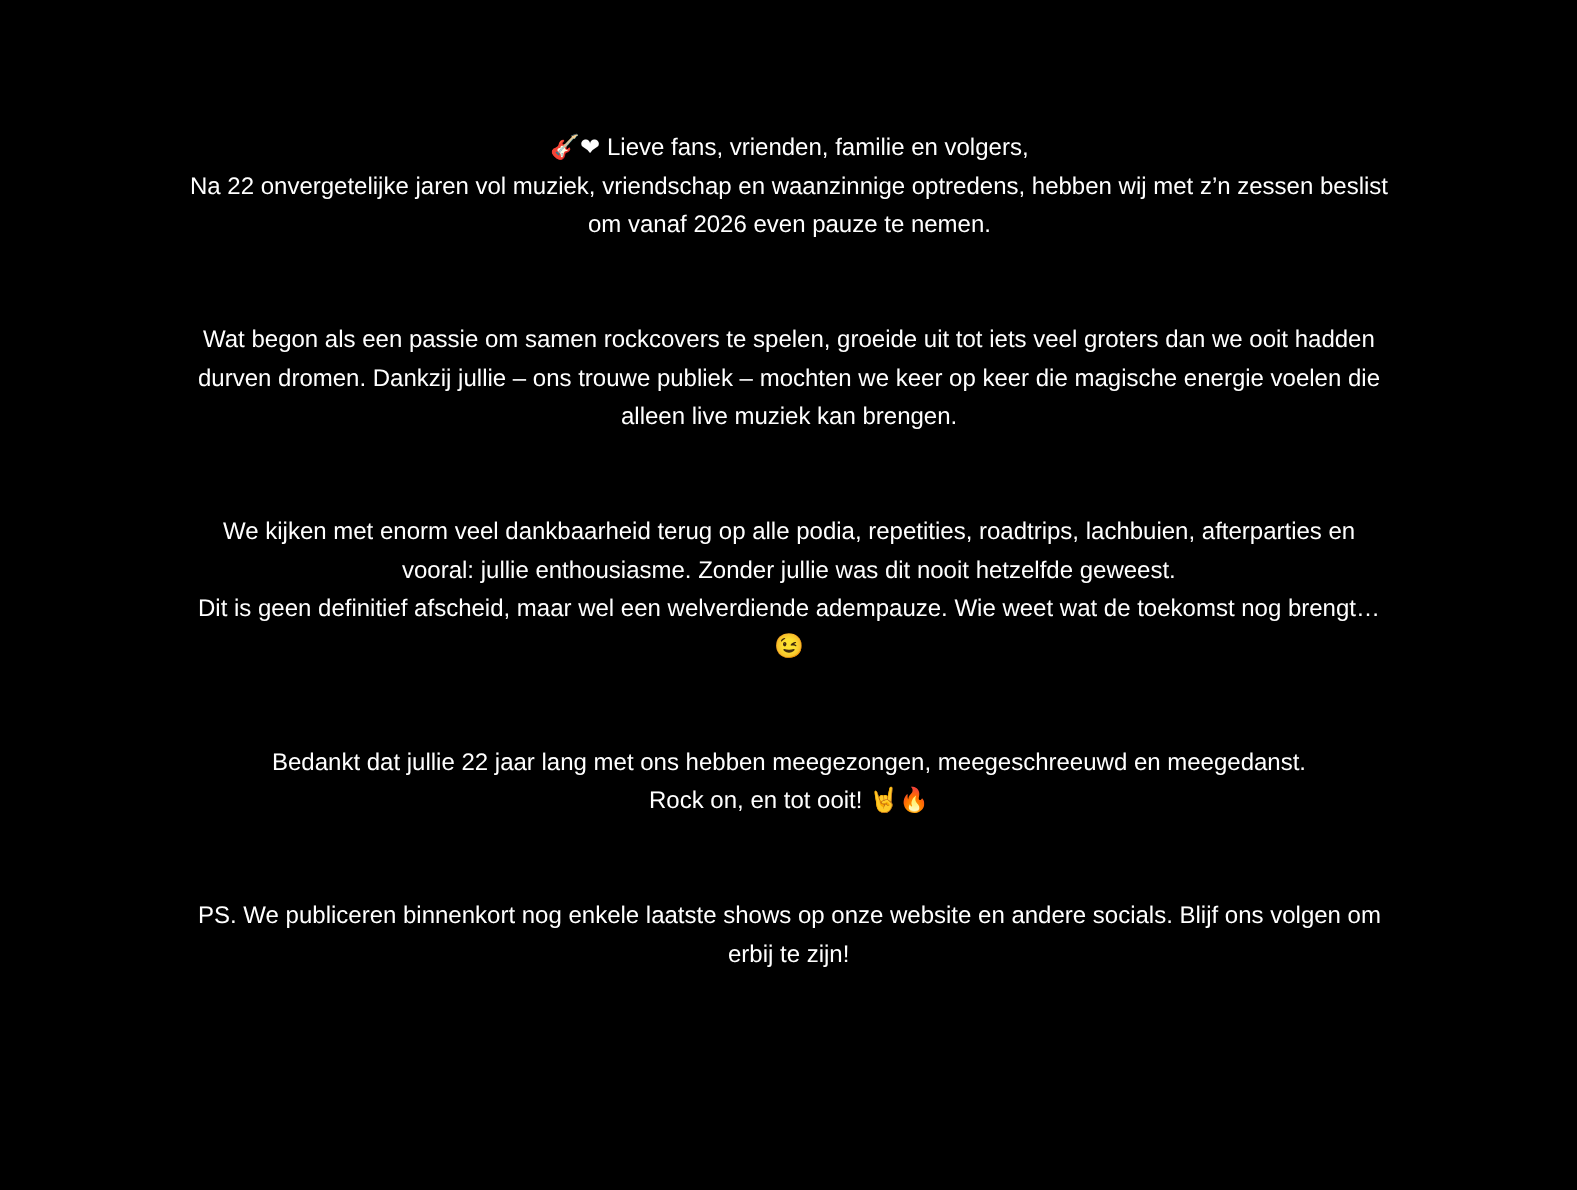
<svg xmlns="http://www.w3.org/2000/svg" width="1577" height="1190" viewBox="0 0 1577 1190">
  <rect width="100%" height="100%" fill="#000000"/>
  <text x="550" y="155" font-family="Noto Color Emoji" font-size="24" fill="#ffffff">🎸</text>
  <text x="580" y="155" font-family="DejaVu Sans" font-size="24" fill="#ffffff">❤</text>
  <text x="607" y="155" font-family="Liberation Sans" font-size="24" fill="#ffffff">Lieve fans, vrienden, familie en volgers,</text>
  <text x="190" y="194" font-family="Liberation Sans" font-size="24" fill="#ffffff">Na 22 onvergetelijke jaren vol muziek, vriendschap en waanzinnige optredens, hebben wij met z’n zessen beslist</text>
  <text x="588" y="232" font-family="Liberation Sans" font-size="24" fill="#ffffff">om vanaf 2026 even pauze te nemen.</text>
  <text x="203" y="347" font-family="Liberation Sans" font-size="24" fill="#ffffff">Wat begon als een passie om samen rockcovers te spelen, groeide uit tot iets veel groters dan we ooit hadden</text>
  <text x="198" y="386" font-family="Liberation Sans" font-size="24" fill="#ffffff">durven dromen. Dankzij jullie – ons trouwe publiek – mochten we keer op keer die magische energie voelen die</text>
  <text x="621" y="424" font-family="Liberation Sans" font-size="24" fill="#ffffff">alleen live muziek kan brengen.</text>
  <text x="223" y="539" font-family="Liberation Sans" font-size="24" fill="#ffffff">We kijken met enorm veel dankbaarheid terug op alle podia, repetities, roadtrips, lachbuien, afterparties en</text>
  <text x="402" y="578" font-family="Liberation Sans" font-size="24" fill="#ffffff">vooral: jullie enthousiasme. Zonder jullie was dit nooit hetzelfde geweest.</text>
  <text x="198" y="616" font-family="Liberation Sans" font-size="24" fill="#ffffff">Dit is geen definitief afscheid, maar wel een welverdiende adempauze. Wie weet wat de toekomst nog brengt…</text>
  <text x="774" y="654" font-family="Noto Color Emoji" font-size="24" fill="#ffffff">😉</text>
  <text x="272" y="770" font-family="Liberation Sans" font-size="24" fill="#ffffff">Bedankt dat jullie 22 jaar lang met ons hebben meegezongen, meegeschreeuwd en meegedanst.</text>
  <text x="649" y="808" font-family="Liberation Sans" font-size="24" fill="#ffffff">Rock on, en tot ooit!</text>
  <text x="869" y="808" font-family="Noto Color Emoji" font-size="24" fill="#ffffff">🤘🔥</text>
  <text x="198" y="923" font-family="Liberation Sans" font-size="24" fill="#ffffff">PS. We publiceren binnenkort nog enkele laatste shows op onze website en andere socials. Blijf ons volgen om</text>
  <text x="728" y="962" font-family="Liberation Sans" font-size="24" fill="#ffffff">erbij te zijn!</text>
</svg>
